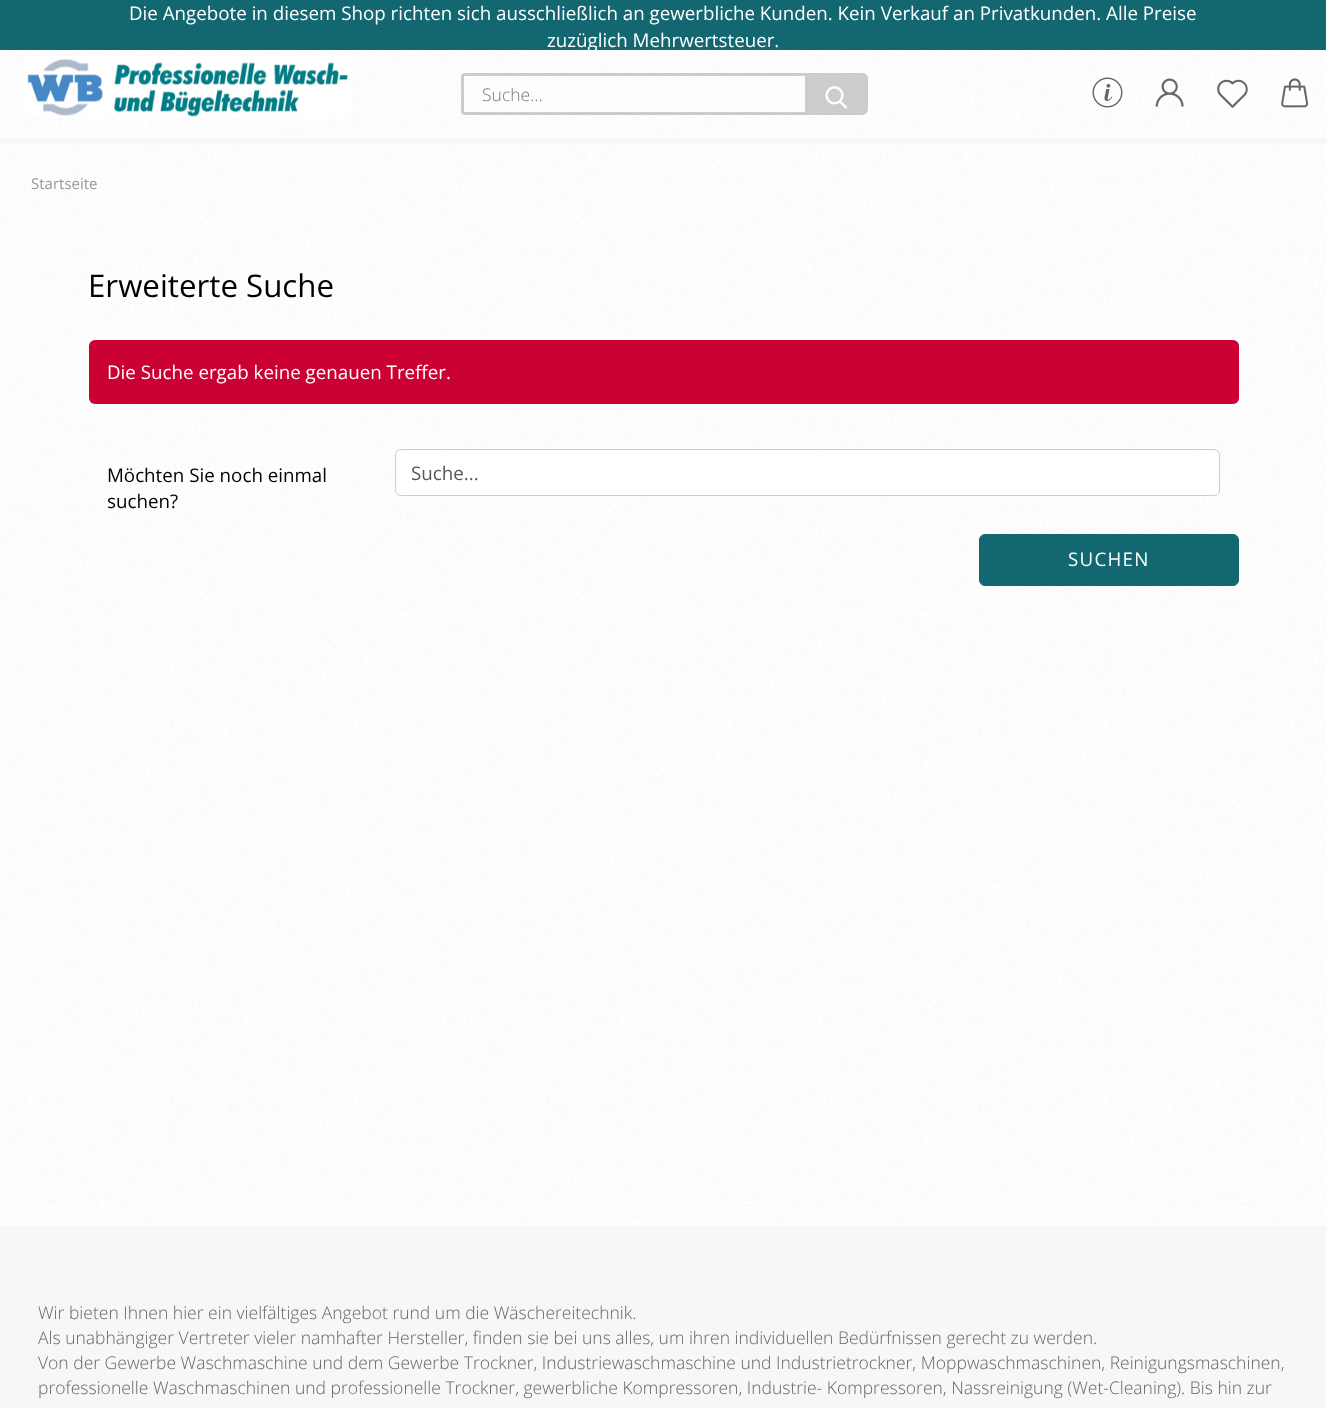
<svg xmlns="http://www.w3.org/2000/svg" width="1326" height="1408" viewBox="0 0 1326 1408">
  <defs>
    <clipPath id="clip1"><rect x="0" y="0" width="1326" height="50"/></clipPath>
  </defs>
  <rect width="100%" height="100%" fill="#ffffff"/>
  <image x="0" y="144" width="1326" height="1082" href="img1.png"/>
  <image x="0" y="50" width="1326" height="88" href="img2.png"/>
  <rect x="-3" y="-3" width="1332" height="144" fill="none" stroke="#f7f7f7" stroke-width="6"/>
  <rect x="0" y="0" width="1326" height="50" fill="#136771"/>
  <text x="129" y="20" font-family="Open Sans" font-size="18.75" fill="#ffffff">Die Angebote in diesem Shop richten sich ausschließlich an gewerbliche Kunden. Kein Verkauf an Privatkunden. Alle Preise</text>
  <g clip-path="url(#clip1)">
    <text x="547" y="47" font-family="Open Sans" font-size="18.75" fill="#ffffff">zuzüglich Mehrwertsteuer.</text>
  </g>
  <image x="25" y="56" width="326" height="62" href="img3.png"/>
  <rect x="462.5" y="74.5" width="401" height="39" rx="2.5" fill="#fdfdfd" stroke="#cccccc" stroke-width="3"/>
  <text x="482" y="101" font-family="Open Sans" font-size="17.5" font-weight="300" fill="#777777">Suche...</text>
  <path d="M805 73H862C865.5 73 868 75.5 868 79V109C868 112.5 865.5 115 862 115H805Z" fill="#cccccc"/>
  <image x="825" y="86" width="22" height="23" href="img4.png"/>
  <image x="1092" y="77" width="31" height="31" href="img5.png"/>
  <image x="1155" y="78" width="29" height="29" href="img6.png"/>
  <image x="1217" y="79" width="31" height="29" href="img7.png"/>
  <image x="1281" y="78" width="28" height="30" href="img8.png"/>
  <text x="31" y="189" font-family="Open Sans" font-size="15" fill="#999999">Startseite</text>
  <text x="88" y="297" font-family="Open Sans" font-size="31.25" fill="#000000">Erweiterte Suche</text>
  <rect x="89" y="340" width="1150" height="64" rx="6" fill="#cb0133"/>
  <text x="107" y="379" font-family="Open Sans" font-size="18.75" fill="#ffffff">Die Suche ergab keine genauen Treffer.</text>
  <text x="107" y="482" font-family="Open Sans" font-size="18.75" fill="#000000">Möchten Sie noch einmal</text>
  <text x="107" y="508" font-family="Open Sans" font-size="18.75" fill="#000000">suchen?</text>
  <rect x="395.5" y="449.5" width="824" height="46" rx="5.5" fill="#ffffff" stroke="#cccccc"/>
  <text x="411" y="480" font-family="Open Sans" font-size="18.75" fill="#575757">Suche...</text>
  <rect x="979.5" y="534.5" width="259" height="51" rx="5.5" fill="#136771" stroke="#136771"/>
  <text x="1068" y="566" font-family="Open Sans" font-size="18.75" letter-spacing="1.25" fill="#ffffff">SUCHEN</text>
  <rect x="0" y="1226" width="1326" height="182" fill="#f7f7f7"/>
  <text x="38" y="1319" font-family="Open Sans" font-size="17.5" font-weight="300" fill="#666666">Wir bieten Ihnen hier ein vielfältiges Angebot rund um die Wäschereitechnik.</text>
  <text x="38" y="1344" font-family="Open Sans" font-size="17.5" font-weight="300" fill="#666666">Als unabhängiger Vertreter vieler namhafter Hersteller, finden sie bei uns alles, um ihren individuellen Bedürfnissen gerecht zu werden.</text>
  <text x="38" y="1369" font-family="Open Sans" font-size="17.5" font-weight="300" fill="#666666">Von der Gewerbe Waschmaschine und dem Gewerbe Trockner, Industriewaschmaschine und Industrietrockner, Moppwaschmaschinen, Reinigungsmaschinen,</text>
  <text x="38" y="1394" font-family="Open Sans" font-size="17.5" font-weight="300" fill="#666666">professionelle Waschmaschinen und professionelle Trockner, gewerbliche Kompressoren, Industrie- Kompressoren, Nassreinigung (Wet-Cleaning). Bis hin zur</text>
</svg>
